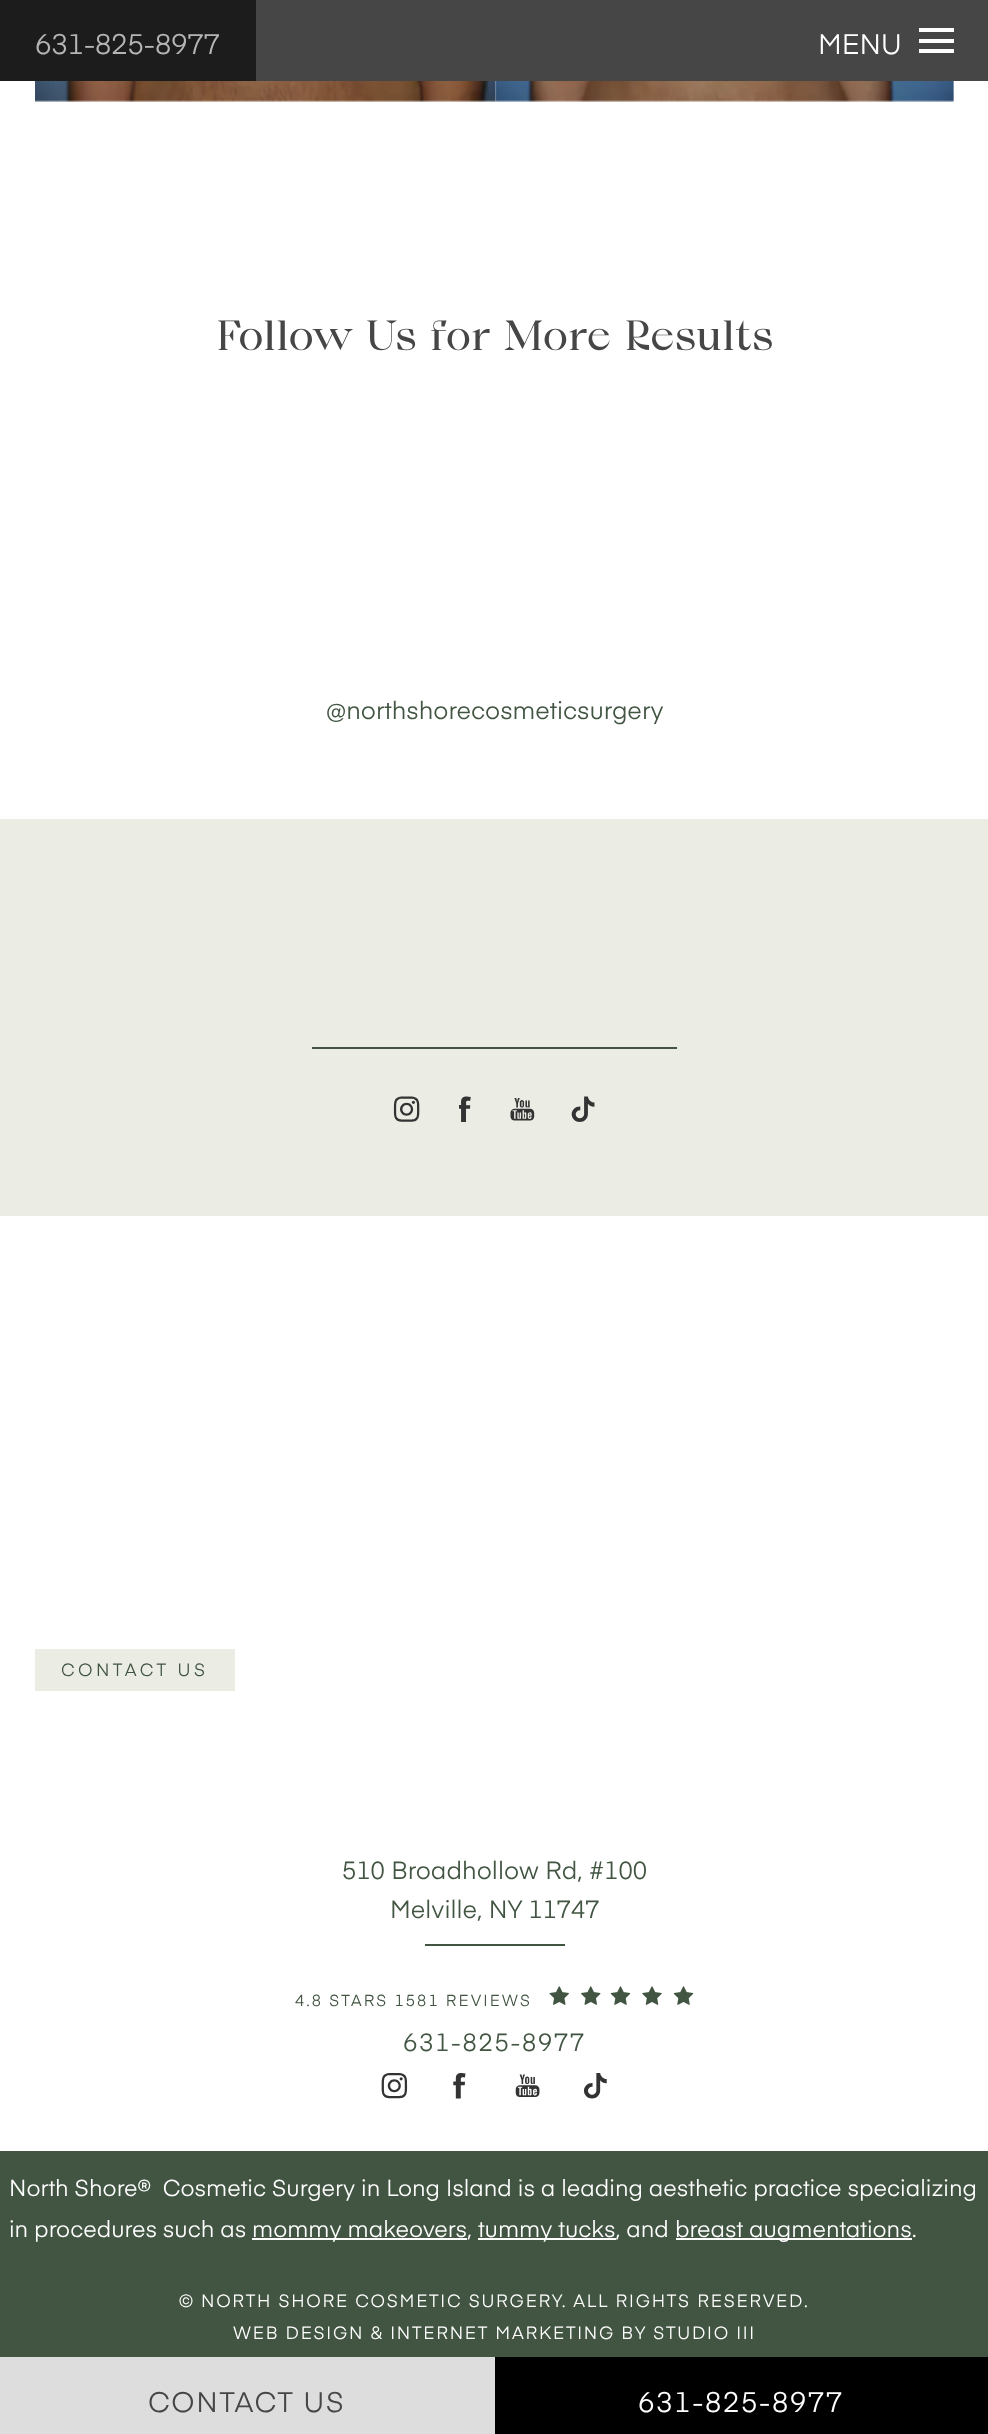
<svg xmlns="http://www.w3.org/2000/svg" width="988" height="2434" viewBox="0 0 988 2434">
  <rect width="100%" height="100%" fill="#ffffff"/>
  <rect x="256" y="0" width="732" height="81" fill="#464646"/>
  <rect x="0" y="0" width="256" height="81" fill="#1c1c1c"/>
  <text x="35" y="54" font-family="'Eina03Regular'" font-size="28" fill="#b5b5b5">631-825-8977</text>
  <text x="818" y="54" font-family="'Eina03Regular'" font-size="28" fill="#ffffff">MENU</text>
  <rect x="919" y="39" width="35" height="4" fill="#ffffff"/>
  <rect x="919" y="28" width="35" height="4" fill="#ffffff"/>
  <rect x="919" y="49" width="35" height="4" fill="#ffffff"/>
  <image x="35" y="81" width="461" height="21" href="img1.png"/>
  <image x="494" y="81" width="460" height="21" href="img2.png"/>
  <text x="216" y="350" font-family="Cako" font-size="42" fill="#464646">Follow Us for More Results</text>
  <text x="326" y="719" font-family="'Eina03Regular'" font-size="24.5" fill="#425542">@northshorecosmeticsurgery</text>
  <rect x="0" y="819" width="988" height="397" fill="#ebede5"/>
  <rect x="312" y="1047" width="365" height="2" fill="#425542"/>
  <image x="393" y="1096" width="27" height="26" href="img3.png"/>
  <image x="459" y="1096" width="12" height="26" href="img4.png"/>
  <image x="510" y="1098" width="25" height="23" href="img5.png"/>
  <image x="571" y="1096" width="24" height="26" href="img6.png"/>
  <rect x="35" y="1649" width="200" height="42" fill="#ebede5"/>
  <text x="61" y="1676" font-family="'Eina03Regular'" font-size="17.5" letter-spacing="3.5" fill="#425542">CONTACT US</text>
  <text x="342" y="1879" font-family="'Eina03Regular'" font-size="24.5" fill="#425542">510 Broadhollow Rd, #100</text>
  <text x="390" y="1918" font-family="'Eina03Regular'" font-size="24.5" fill="#425542">Melville, NY 11747</text>
  <rect x="425" y="1944" width="140" height="2" fill="#425542"/>
  <text x="295" y="2006" font-family="'Eina03Regular'" font-size="15.75" letter-spacing="2.1" fill="#425542">4.8 STARS 1581 REVIEWS</text>
  <image x="549" y="1986" width="20" height="19" href="img7.png"/>
  <image x="581" y="1986" width="20" height="19" href="img8.png"/>
  <image x="610" y="1986" width="21" height="19" href="img9.png"/>
  <image x="642" y="1986" width="20" height="19" href="img10.png"/>
  <image x="673" y="1986" width="21" height="19" href="img9.png"/>
  <text x="403" y="2051" font-family="'Eina03Regular'" font-size="24.5" letter-spacing="1.75" fill="#425542">631-825-8977</text>
  <image x="381" y="2073" width="27" height="26" href="img11.png"/>
  <image x="453" y="2073" width="13" height="26" href="img12.png"/>
  <image x="515" y="2074" width="25" height="23" href="img13.png"/>
  <image x="583" y="2073" width="24" height="26" href="img14.png"/>
  <rect x="0" y="2357" width="495" height="77" fill="#dddddd"/>
  <text x="148" y="2412" font-family="'Eina03Regular'" font-size="28" letter-spacing="1.75" fill="#464646">CONTACT US</text>
  <rect x="495" y="2357" width="493" height="77" fill="#000000"/>
  <text x="638" y="2412" font-family="'Eina03Regular'" font-size="28" letter-spacing="1.75" fill="#ffffff">631-825-8977</text>
  <rect x="0" y="2151" width="988" height="206" fill="#425542"/>
  <text x="9" y="2196" font-family="'Eina03Regular'" font-size="22.75" fill="#ffffff" xml:space="preserve">North Shore®  Cosmetic Surgery in Long Island is a leading aesthetic practice specializing</text>
  <text x="9" y="2237" font-family="'Eina03Regular'" font-size="22.75" fill="#ffffff">in procedures such as</text>
  <rect x="252" y="2238" width="215" height="2" fill="#ffffff"/>
  <text x="252" y="2237" font-family="'Eina03Regular'" font-size="22.75" fill="#ffffff">mommy makeovers,</text>
  <rect x="478" y="2238" width="138" height="2" fill="#ffffff"/>
  <text x="478" y="2237" font-family="'Eina03Regular'" font-size="22.75" fill="#ffffff">tummy tucks, and</text>
  <rect x="676" y="2238" width="236" height="2" fill="#ffffff"/>
  <text x="675" y="2237" font-family="'Eina03Regular'" font-size="22.75" fill="#ffffff">breast augmentations.</text>
  <text x="179" y="2307" font-family="'Eina03Regular'" font-size="17.5" letter-spacing="1.75" fill="#ffffff">© NORTH SHORE COSMETIC SURGERY. ALL RIGHTS RESERVED.</text>
  <text x="233" y="2339" font-family="'Eina03Regular'" font-size="17.5" letter-spacing="1.75" fill="#ffffff">WEB DESIGN &amp; INTERNET MARKETING BY STUDIO III</text>
</svg>
